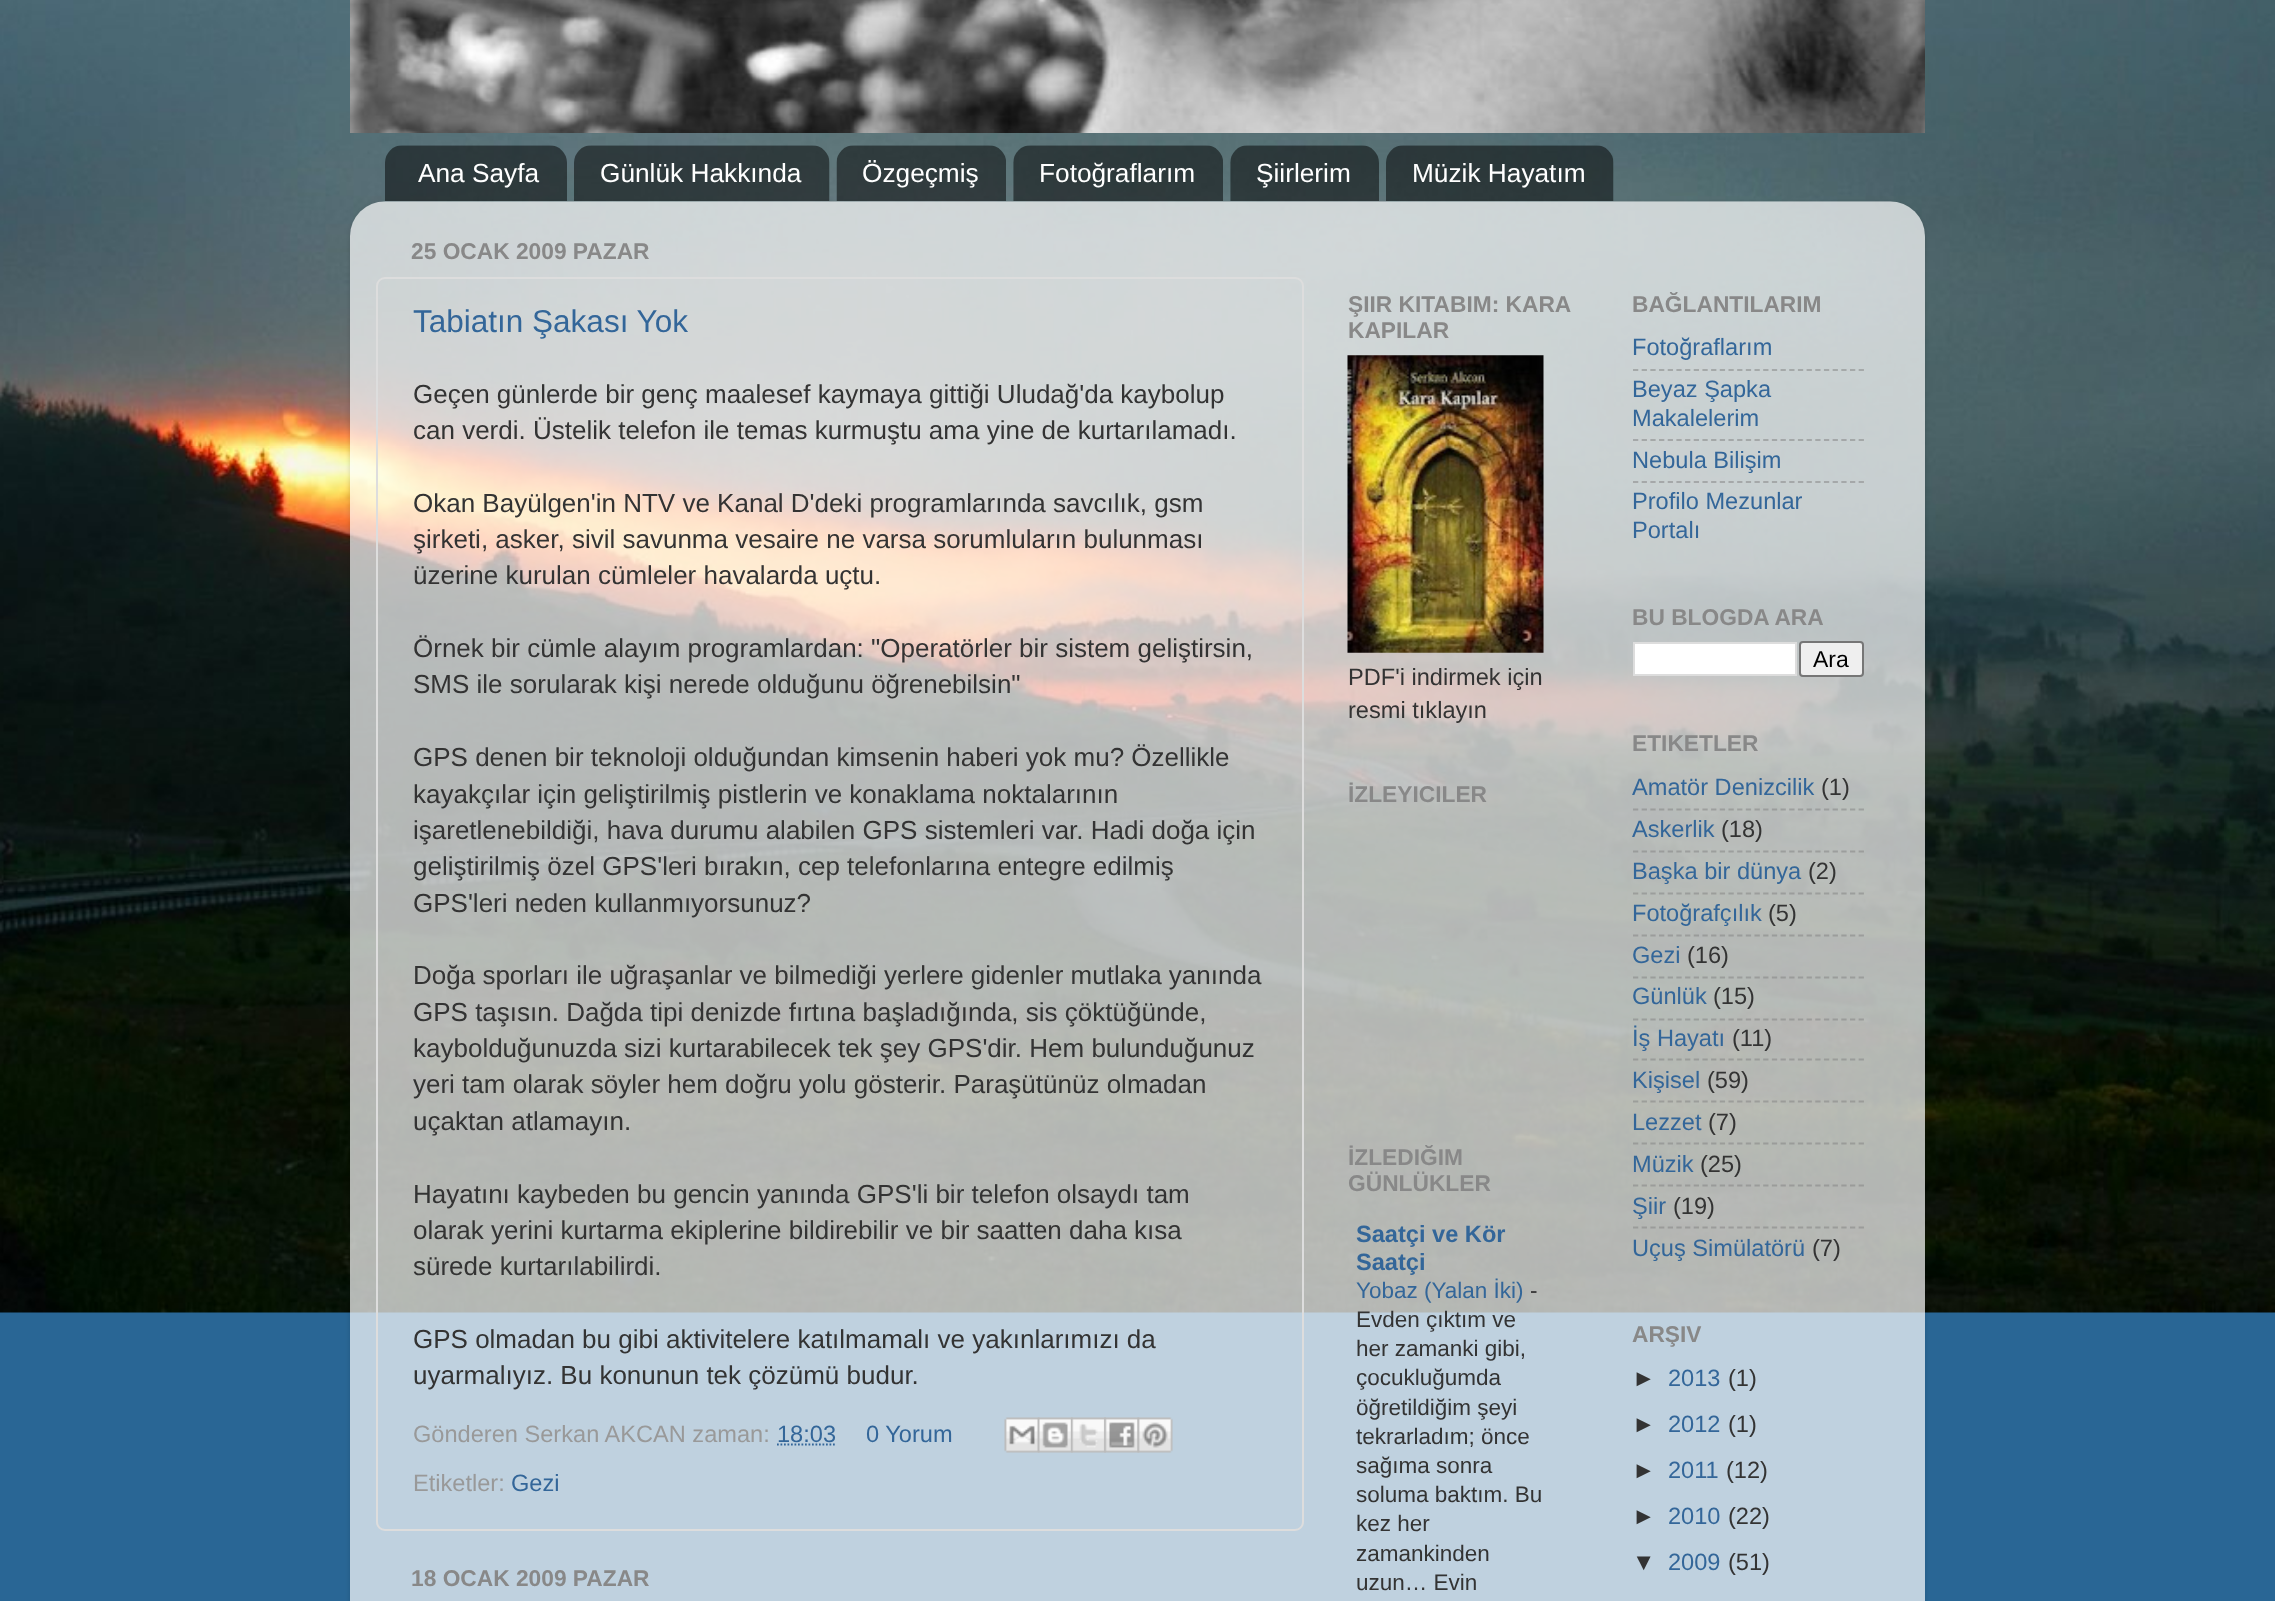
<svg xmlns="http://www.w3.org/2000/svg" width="2275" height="1601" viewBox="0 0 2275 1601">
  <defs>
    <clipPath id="clip1"><path d="M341 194H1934V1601H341ZM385 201H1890C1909.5 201 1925 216.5 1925 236V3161H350V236C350 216.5 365.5 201 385 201Z" clip-rule="evenodd"/></clipPath>
    <filter id="blur1" x="-50%" y="-200%" width="200%" height="500%"><feGaussianBlur stdDeviation="2.5"/></filter>
  </defs>
  <rect width="100%" height="100%" fill="#296695"/>
  <image x="0" y="0" width="2275" height="1313" href="img1.png"/>
  <image x="350" y="0" width="1575" height="133" href="img2.png"/>
  <image x="385" y="145" width="182" height="56" href="img3.png"/>
  <text x="418" y="182" font-family="Liberation Sans" font-size="26.25" fill="#ffffff">Ana Sayfa</text>
  <image x="574" y="145" width="256" height="56" href="img4.png"/>
  <text x="600" y="182" font-family="Liberation Sans" font-size="26.25" fill="#ffffff">Günlük Hakkında</text>
  <image x="836" y="145" width="170" height="56" href="img5.png"/>
  <text x="862" y="182" font-family="Liberation Sans" font-size="26.25" fill="#ffffff">Özgeçmiş</text>
  <image x="1013" y="145" width="210" height="56" href="img6.png"/>
  <text x="1039" y="182" font-family="Liberation Sans" font-size="26.25" fill="#ffffff">Fotoğraflarım</text>
  <image x="1230" y="145" width="149" height="56" href="img7.png"/>
  <text x="1256" y="182" font-family="Liberation Sans" font-size="26.25" fill="#ffffff">Şiirlerim</text>
  <image x="1386" y="145" width="228" height="56" href="img8.png"/>
  <text x="1412" y="182" font-family="Liberation Sans" font-size="26.25" fill="#ffffff">Müzik Hayatım</text>
  <g clip-path="url(#clip1)">
    <rect x="350" y="203" width="1575" height="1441" rx="35" fill="#000000" fill-opacity="0.15" filter="url(#blur1)"/>
  </g>
  <image x="350" y="201" width="1575" height="1400" href="img9.png"/>
  <text x="411" y="259" font-family="Liberation Sans" font-size="22.75" font-weight="bold" fill="#888888">25 OCAK 2009 PAZAR</text>
  <rect x="377" y="278" width="926" height="1252" rx="8" fill="none" stroke="#dddddd" stroke-width="2"/>
  <text x="413" y="332" font-family="Liberation Sans" font-size="31.5" fill="#336699">Tabiatın Şakası Yok</text>
  <text x="413" y="403" font-family="Liberation Sans" font-size="26" fill="#333333">Geçen günlerde bir genç maalesef kaymaya gittiği Uludağ'da kaybolup</text>
  <text x="413" y="439" font-family="Liberation Sans" font-size="26" fill="#333333">can verdi. Üstelik telefon ile temas kurmuştu ama yine de kurtarılamadı.</text>
  <text x="413" y="512" font-family="Liberation Sans" font-size="26" fill="#333333">Okan Bayülgen'in NTV ve Kanal D'deki programlarında savcılık, gsm</text>
  <text x="413" y="548" font-family="Liberation Sans" font-size="26" fill="#333333">şirketi, asker, sivil savunma vesaire ne varsa sorumluların bulunması</text>
  <text x="413" y="584" font-family="Liberation Sans" font-size="26" fill="#333333">üzerine kurulan cümleler havalarda uçtu.</text>
  <text x="413" y="657" font-family="Liberation Sans" font-size="26" fill="#333333">Örnek bir cümle alayım programlardan: "Operatörler bir sistem geliştirsin,</text>
  <text x="413" y="693" font-family="Liberation Sans" font-size="26" fill="#333333">SMS ile sorularak kişi nerede olduğunu öğrenebilsin"</text>
  <text x="413" y="766" font-family="Liberation Sans" font-size="26" fill="#333333">GPS denen bir teknoloji olduğundan kimsenin haberi yok mu? Özellikle</text>
  <text x="413" y="803" font-family="Liberation Sans" font-size="26" fill="#333333">kayakçılar için geliştirilmiş pistlerin ve konaklama noktalarının</text>
  <text x="413" y="839" font-family="Liberation Sans" font-size="26" fill="#333333">işaretlenebildiği, hava durumu alabilen GPS sistemleri var. Hadi doğa için</text>
  <text x="413" y="875" font-family="Liberation Sans" font-size="26" fill="#333333">geliştirilmiş özel GPS'leri bırakın, cep telefonlarına entegre edilmiş</text>
  <text x="413" y="912" font-family="Liberation Sans" font-size="26" fill="#333333">GPS'leri neden kullanmıyorsunuz?</text>
  <text x="413" y="984" font-family="Liberation Sans" font-size="26" fill="#333333">Doğa sporları ile uğraşanlar ve bilmediği yerlere gidenler mutlaka yanında</text>
  <text x="413" y="1021" font-family="Liberation Sans" font-size="26" fill="#333333">GPS taşısın. Dağda tipi denizde fırtına başladığında, sis çöktüğünde,</text>
  <text x="413" y="1057" font-family="Liberation Sans" font-size="26" fill="#333333">kaybolduğunuzda sizi kurtarabilecek tek şey GPS'dir. Hem bulunduğunuz</text>
  <text x="413" y="1093" font-family="Liberation Sans" font-size="26" fill="#333333">yeri tam olarak söyler hem doğru yolu gösterir. Paraşütünüz olmadan</text>
  <text x="413" y="1130" font-family="Liberation Sans" font-size="26" fill="#333333">uçaktan atlamayın.</text>
  <text x="413" y="1203" font-family="Liberation Sans" font-size="26" fill="#333333">Hayatını kaybeden bu gencin yanında GPS'li bir telefon olsaydı tam</text>
  <text x="413" y="1239" font-family="Liberation Sans" font-size="26" fill="#333333">olarak yerini kurtarma ekiplerine bildirebilir ve bir saatten daha kısa</text>
  <text x="413" y="1275" font-family="Liberation Sans" font-size="26" fill="#333333">sürede kurtarılabilirdi.</text>
  <text x="413" y="1348" font-family="Liberation Sans" font-size="26" fill="#333333">GPS olmadan bu gibi aktivitelere katılmamalı ve yakınlarımızı da</text>
  <text x="413" y="1384" font-family="Liberation Sans" font-size="26" fill="#333333">uyarmalıyız. Bu konunun tek çözümü budur.</text>
  <text x="413" y="1442" font-family="Liberation Sans" font-size="23.6" fill="#999999">Gönderen Serkan AKCAN zaman:</text>
  <text x="777" y="1442" font-family="Liberation Sans" font-size="23.6" fill="#336699">18:03</text>
  <path d="M777 1444.5H836" fill="none" stroke="#336699" stroke-width="1.8" stroke-dasharray="1.75 1.75"/>
  <text x="866" y="1442" font-family="Liberation Sans" font-size="23.6" fill="#336699">0 Yorum</text>
  <image x="1004" y="1417" width="36" height="36" href="img10.png"/>
  <image x="1037" y="1417" width="36" height="36" href="img11.png"/>
  <image x="1071" y="1417" width="35" height="36" href="img12.png"/>
  <image x="1104" y="1417" width="36" height="36" href="img13.png"/>
  <image x="1137" y="1417" width="36" height="36" href="img14.png"/>
  <text x="413" y="1491" font-family="Liberation Sans" font-size="23.6" fill="#999999">Etiketler:</text>
  <text x="511" y="1491" font-family="Liberation Sans" font-size="23.6" fill="#336699">Gezi</text>
  <text x="411" y="1586" font-family="Liberation Sans" font-size="22.75" font-weight="bold" fill="#888888">18 OCAK 2009 PAZAR</text>
  <text x="1348" y="312" font-family="Liberation Sans" font-size="22.75" font-weight="bold" fill="#888888">ŞIIR KITABIM: KARA</text>
  <text x="1348" y="338" font-family="Liberation Sans" font-size="22.75" font-weight="bold" fill="#888888">KAPILAR</text>
  <image x="1347" y="355" width="197" height="298" href="img15.png"/>
  <text x="1348" y="685" font-family="Liberation Sans" font-size="23.6" fill="#333333">PDF'i indirmek için</text>
  <text x="1348" y="718" font-family="Liberation Sans" font-size="23.6" fill="#333333">resmi tıklayın</text>
  <text x="1348" y="802" font-family="Liberation Sans" font-size="22.75" font-weight="bold" fill="#888888">İZLEYICILER</text>
  <text x="1348" y="1165" font-family="Liberation Sans" font-size="22.75" font-weight="bold" fill="#888888">İZLEDIĞIM</text>
  <text x="1348" y="1191" font-family="Liberation Sans" font-size="22.75" font-weight="bold" fill="#888888">GÜNLÜKLER</text>
  <text x="1356" y="1242" font-family="Liberation Sans" font-size="23.6" font-weight="bold" fill="#336699">Saatçi ve Kör</text>
  <text x="1356" y="1270" font-family="Liberation Sans" font-size="23.6" font-weight="bold" fill="#336699">Saatçi</text>
  <text x="1356" y="1298" font-family="Liberation Sans" font-size="22.5" fill="#336699">Yobaz (Yalan İki)</text>
  <text x="1530" y="1298" font-family="Liberation Sans" font-size="22.5" fill="#333333">-</text>
  <text x="1356" y="1327" font-family="Liberation Sans" font-size="22.5" fill="#333333">Evden çıktım ve</text>
  <text x="1356" y="1356" font-family="Liberation Sans" font-size="22.5" fill="#333333">her zamanki gibi,</text>
  <text x="1356" y="1385" font-family="Liberation Sans" font-size="22.5" fill="#333333">çocukluğumda</text>
  <text x="1356" y="1415" font-family="Liberation Sans" font-size="22.5" fill="#333333">öğretildiğim şeyi</text>
  <text x="1356" y="1444" font-family="Liberation Sans" font-size="22.5" fill="#333333">tekrarladım; önce</text>
  <text x="1356" y="1473" font-family="Liberation Sans" font-size="22.5" fill="#333333">sağıma sonra</text>
  <text x="1356" y="1502" font-family="Liberation Sans" font-size="22.5" fill="#333333">soluma baktım. Bu</text>
  <text x="1356" y="1531" font-family="Liberation Sans" font-size="22.5" fill="#333333">kez her</text>
  <text x="1356" y="1561" font-family="Liberation Sans" font-size="22.5" fill="#333333">zamankinden</text>
  <text x="1356" y="1590" font-family="Liberation Sans" font-size="22.5" fill="#333333">uzun… Evin</text>
  <text x="1632" y="312" font-family="Liberation Sans" font-size="22.75" font-weight="bold" fill="#888888">BAĞLANTILARIM</text>
  <text x="1632" y="355" font-family="Liberation Sans" font-size="23.6" fill="#336699">Fotoğraflarım</text>
  <path d="M1633 370H1864" fill="none" stroke="#a5a9a9" stroke-width="1.8" stroke-dasharray="5.25 3.43"/>
  <text x="1632" y="397" font-family="Liberation Sans" font-size="23.6" fill="#336699">Beyaz Şapka</text>
  <text x="1632" y="426" font-family="Liberation Sans" font-size="23.6" fill="#336699">Makalelerim</text>
  <path d="M1633 440H1864" fill="none" stroke="#808080" stroke-opacity="0.5" stroke-width="1.8" stroke-dasharray="5.25 3.43"/>
  <text x="1632" y="468" font-family="Liberation Sans" font-size="23.6" fill="#336699">Nebula Bilişim</text>
  <path d="M1633 482H1864" fill="none" stroke="#a5a8a9" stroke-width="1.8" stroke-dasharray="5.25 3.43"/>
  <text x="1632" y="509" font-family="Liberation Sans" font-size="23.6" fill="#336699">Profilo Mezunlar</text>
  <text x="1632" y="538" font-family="Liberation Sans" font-size="23.6" fill="#336699">Portalı</text>
  <text x="1632" y="625" font-family="Liberation Sans" font-size="22.75" font-weight="bold" fill="#888888">BU BLOGDA ARA</text>
  <rect x="1634" y="643" width="162" height="32" fill="#ffffff" stroke="#dddddd" stroke-width="2"/>
  <rect x="1800" y="642" width="63" height="34" rx="3" fill="#efefef" stroke="#767676" stroke-width="2"/>
  <text x="1813" y="667" font-family="Liberation Sans" font-size="23" fill="#000000">Ara</text>
  <text x="1632" y="751" font-family="Liberation Sans" font-size="22.75" font-weight="bold" fill="#888888">ETIKETLER</text>
  <text x="1632" y="795" font-family="Liberation Sans" font-size="23.6" fill="#336699">Amatör Denizcilik</text>
  <text x="1821" y="795" font-family="Liberation Sans" font-size="23.6" fill="#333333">(1)</text>
  <path d="M1633 809.5H1864" fill="none" stroke="#808080" stroke-opacity="0.5" stroke-width="1.8" stroke-dasharray="5.25 3.43"/>
  <text x="1632" y="837" font-family="Liberation Sans" font-size="23.6" fill="#336699">Askerlik</text>
  <text x="1721" y="837" font-family="Liberation Sans" font-size="23.6" fill="#333333">(18)</text>
  <path d="M1633 851.5H1864" fill="none" stroke="#808080" stroke-opacity="0.5" stroke-width="1.8" stroke-dasharray="5.25 3.43"/>
  <text x="1632" y="879" font-family="Liberation Sans" font-size="23.6" fill="#336699">Başka bir dünya</text>
  <text x="1808" y="879" font-family="Liberation Sans" font-size="23.6" fill="#333333">(2)</text>
  <path d="M1633 893.5H1864" fill="none" stroke="#808080" stroke-opacity="0.5" stroke-width="1.8" stroke-dasharray="5.25 3.43"/>
  <text x="1632" y="921" font-family="Liberation Sans" font-size="23.6" fill="#336699">Fotoğrafçılık</text>
  <text x="1768" y="921" font-family="Liberation Sans" font-size="23.6" fill="#333333">(5)</text>
  <path d="M1633 935.5H1864" fill="none" stroke="#808080" stroke-opacity="0.5" stroke-width="1.8" stroke-dasharray="5.25 3.43"/>
  <text x="1632" y="963" font-family="Liberation Sans" font-size="23.6" fill="#336699">Gezi</text>
  <text x="1687" y="963" font-family="Liberation Sans" font-size="23.6" fill="#333333">(16)</text>
  <path d="M1633 977.5H1864" fill="none" stroke="#808080" stroke-opacity="0.5" stroke-width="1.8" stroke-dasharray="5.25 3.43"/>
  <text x="1632" y="1004" font-family="Liberation Sans" font-size="23.6" fill="#336699">Günlük</text>
  <text x="1713" y="1004" font-family="Liberation Sans" font-size="23.6" fill="#333333">(15)</text>
  <path d="M1633 1019.5H1864" fill="none" stroke="#808080" stroke-opacity="0.5" stroke-width="1.8" stroke-dasharray="5.25 3.43"/>
  <text x="1632" y="1046" font-family="Liberation Sans" font-size="23.6" fill="#336699">İş Hayatı</text>
  <text x="1732" y="1046" font-family="Liberation Sans" font-size="23.6" fill="#333333">(11)</text>
  <path d="M1633 1059.5H1864" fill="none" stroke="#808080" stroke-opacity="0.5" stroke-width="1.8" stroke-dasharray="5.25 3.43"/>
  <text x="1632" y="1088" font-family="Liberation Sans" font-size="23.6" fill="#336699">Kişisel</text>
  <text x="1707" y="1088" font-family="Liberation Sans" font-size="23.6" fill="#333333">(59)</text>
  <path d="M1633 1101.5H1864" fill="none" stroke="#808080" stroke-opacity="0.5" stroke-width="1.8" stroke-dasharray="5.25 3.43"/>
  <text x="1632" y="1130" font-family="Liberation Sans" font-size="23.6" fill="#336699">Lezzet</text>
  <text x="1708" y="1130" font-family="Liberation Sans" font-size="23.6" fill="#333333">(7)</text>
  <path d="M1633 1143.5H1864" fill="none" stroke="#808080" stroke-opacity="0.5" stroke-width="1.8" stroke-dasharray="5.25 3.43"/>
  <text x="1632" y="1172" font-family="Liberation Sans" font-size="23.6" fill="#336699">Müzik</text>
  <text x="1700" y="1172" font-family="Liberation Sans" font-size="23.6" fill="#333333">(25)</text>
  <path d="M1633 1185.5H1864" fill="none" stroke="#808080" stroke-opacity="0.5" stroke-width="1.8" stroke-dasharray="5.25 3.43"/>
  <text x="1632" y="1214" font-family="Liberation Sans" font-size="23.6" fill="#336699">Şiir</text>
  <text x="1673" y="1214" font-family="Liberation Sans" font-size="23.6" fill="#333333">(19)</text>
  <path d="M1633 1227.5H1864" fill="none" stroke="#808080" stroke-opacity="0.5" stroke-width="1.8" stroke-dasharray="5.25 3.43"/>
  <text x="1632" y="1256" font-family="Liberation Sans" font-size="23.6" fill="#336699">Uçuş Simülatörü</text>
  <text x="1812" y="1256" font-family="Liberation Sans" font-size="23.6" fill="#333333">(7)</text>
  <text x="1632" y="1342" font-family="Liberation Sans" font-size="22.75" font-weight="bold" fill="#888888">ARŞIV</text>
  <text x="1632" y="1386" font-family="Liberation Sans" font-size="23.6" fill="#333333">►</text>
  <text x="1668" y="1386" font-family="Liberation Sans" font-size="23.6" fill="#336699">2013</text>
  <text x="1728" y="1386" font-family="Liberation Sans" font-size="23.6" fill="#333333">(1)</text>
  <text x="1632" y="1432" font-family="Liberation Sans" font-size="23.6" fill="#333333">►</text>
  <text x="1668" y="1432" font-family="Liberation Sans" font-size="23.6" fill="#336699">2012</text>
  <text x="1728" y="1432" font-family="Liberation Sans" font-size="23.6" fill="#333333">(1)</text>
  <text x="1632" y="1478" font-family="Liberation Sans" font-size="23.6" fill="#333333">►</text>
  <text x="1668" y="1478" font-family="Liberation Sans" font-size="23.6" fill="#336699">2011</text>
  <text x="1726" y="1478" font-family="Liberation Sans" font-size="23.6" fill="#333333">(12)</text>
  <text x="1632" y="1524" font-family="Liberation Sans" font-size="23.6" fill="#333333">►</text>
  <text x="1668" y="1524" font-family="Liberation Sans" font-size="23.6" fill="#336699">2010</text>
  <text x="1728" y="1524" font-family="Liberation Sans" font-size="23.6" fill="#333333">(22)</text>
  <text x="1632" y="1570" font-family="Liberation Sans" font-size="23.6" fill="#333333">▼</text>
  <text x="1668" y="1570" font-family="Liberation Sans" font-size="23.6" fill="#336699">2009</text>
  <text x="1728" y="1570" font-family="Liberation Sans" font-size="23.6" fill="#333333">(51)</text>
</svg>
